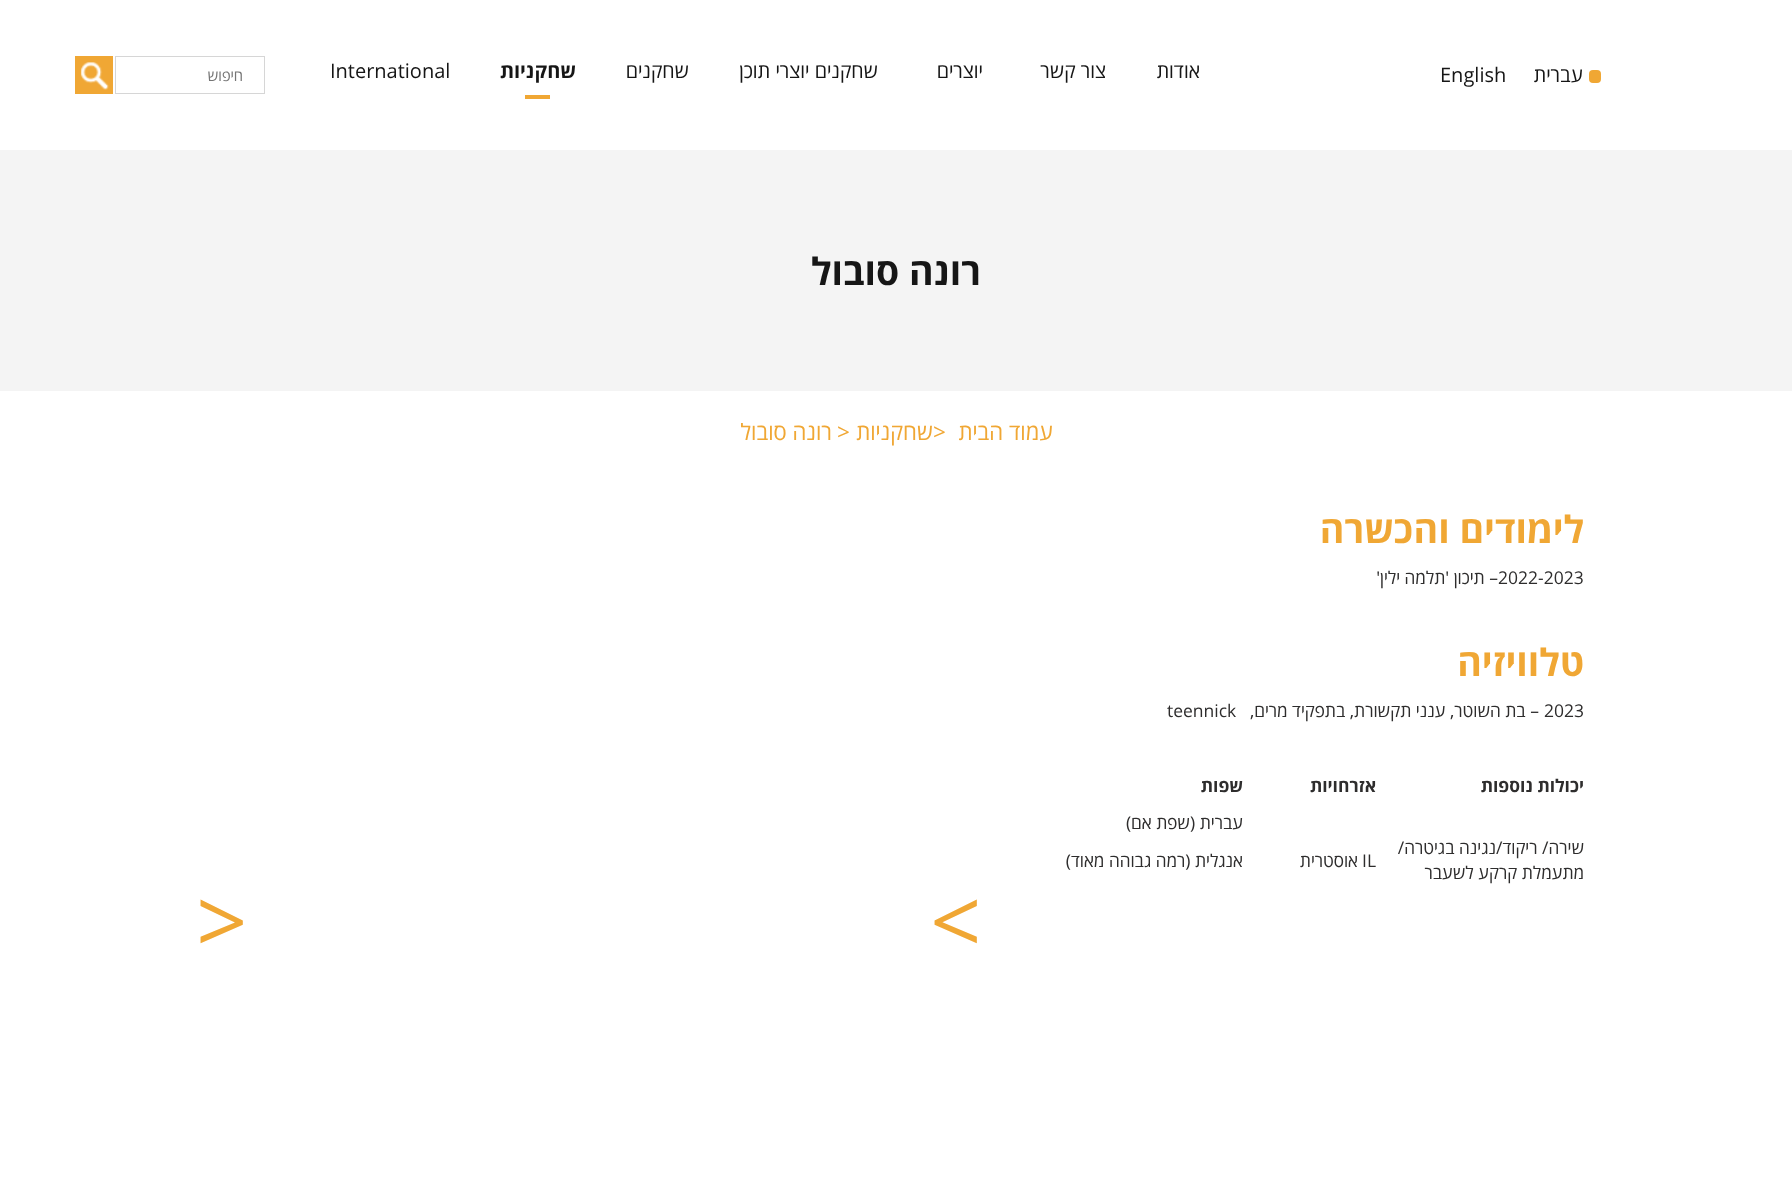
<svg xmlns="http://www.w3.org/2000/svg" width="1792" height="1179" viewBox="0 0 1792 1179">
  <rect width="100%" height="100%" fill="#ffffff"/>
  <rect x="1589" y="70" width="12" height="13" rx="4" fill="#f0a734"/>
  <text x="1583" y="82" font-family="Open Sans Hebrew" font-size="20" direction="rtl" fill="#161616">עברית</text>
  <text x="1440" y="82" font-family="Open Sans Hebrew" font-size="20" fill="#161616">English</text>
  <text x="1200" y="78" font-family="Open Sans Hebrew" font-size="20" direction="rtl" fill="#161616">אודות</text>
  <text x="1106" y="78" font-family="Open Sans Hebrew" font-size="20" direction="rtl" fill="#161616">צור קשר</text>
  <text x="983" y="78" font-family="Open Sans Hebrew" font-size="20" direction="rtl" fill="#161616">יוצרים</text>
  <text x="878" y="78" font-family="Open Sans Hebrew" font-size="20" direction="rtl" fill="#161616">שחקנים יוצרי תוכן</text>
  <text x="689" y="78" font-family="Open Sans Hebrew" font-size="20" direction="rtl" fill="#161616">שחקנים</text>
  <text x="576" y="78" font-family="Open Sans Hebrew" font-size="20" font-weight="bold" direction="rtl" fill="#161616">שחקניות</text>
  <rect x="525" y="95" width="25" height="4" fill="#f0a734"/>
  <text x="330" y="78" font-family="Open Sans Hebrew" font-size="20" fill="#161616">International</text>
  <rect x="115.5" y="56.5" width="149" height="37" fill="none" stroke="#d6d6d6"/>
  <text x="243" y="81" font-family="Open Sans Hebrew" font-size="15" direction="rtl" fill="#757575">חיפוש</text>
  <rect x="75" y="56" width="38" height="38" fill="#f0a734"/>
  <image x="80" y="62" width="29" height="28" href="img1.png"/>
  <rect x="0" y="150" width="1792" height="241" fill="#f4f4f4"/>
  <text x="981" y="285" font-family="Open Sans Hebrew" font-size="37.5" font-weight="bold" direction="rtl" fill="#161616">רונה סובול</text>
  <text x="1053" y="440" font-family="Open Sans Hebrew" font-size="22.5" direction="rtl" fill="#f0a734">עמוד הבית</text>
  <text x="933" y="440" font-family="Open Sans Hebrew" font-size="22.5" fill="#f0a734">&gt;</text>
  <text x="933" y="440" font-family="Open Sans Hebrew" font-size="22.5" direction="rtl" fill="#f0a734">שחקניות</text>
  <text x="837" y="440" font-family="Open Sans Hebrew" font-size="22.5" fill="#f0a734">&gt;</text>
  <text x="832" y="440" font-family="Open Sans Hebrew" font-size="22.5" direction="rtl" fill="#f0a734">רונה סובול</text>
  <text x="1584" y="543" font-family="Open Sans Hebrew" font-size="37.5" font-weight="bold" direction="rtl" fill="#f0a734">לימודים וה</text>
  <text x="1413" y="543" font-family="Open Sans Hebrew" font-size="37.5" font-weight="bold" direction="rtl" fill="#f0a734">כשרה</text>
  <text x="1498" y="584" font-family="Open Sans Hebrew" font-size="17.5" fill="#2e2d2d">2022-2023</text>
  <text x="1498" y="584" font-family="Open Sans Hebrew" font-size="17.5" direction="rtl" fill="#2e2d2d">– תיכון 'תלמה ילין'</text>
  <text x="1584" y="676" font-family="Open Sans Hebrew" font-size="37.5" font-weight="bold" direction="rtl" fill="#f0a734">טלוויזיה</text>
  <text x="1544" y="717" font-family="Open Sans Hebrew" font-size="17.5" fill="#2e2d2d">2023</text>
  <text x="1539" y="717" font-family="Open Sans Hebrew" font-size="17.5" direction="rtl" fill="#2e2d2d">– בת השוטר, ענני תקשורת, בתפקיד מרים,</text>
  <text x="1167" y="717" font-family="Open Sans Hebrew" font-size="17.5" fill="#2e2d2d">teennick</text>
  <text x="1584" y="792" font-family="Open Sans Hebrew" font-size="17.5" font-weight="bold" direction="rtl" fill="#2e2d2d">יכולות נוספות</text>
  <text x="1376" y="792" font-family="Open Sans Hebrew" font-size="17.5" font-weight="bold" direction="rtl" fill="#2e2d2d">אזרחויות</text>
  <text x="1243" y="792" font-family="Open Sans Hebrew" font-size="17.5" font-weight="bold" direction="rtl" fill="#2e2d2d">שפות</text>
  <text x="1584" y="854" font-family="Open Sans Hebrew" font-size="17.5" direction="rtl" fill="#2e2d2d">שירה/ ריקוד/נגינה בגיטרה/</text>
  <text x="1584" y="879" font-family="Open Sans Hebrew" font-size="17.5" direction="rtl" fill="#2e2d2d">מתעמלת קרקע לשעבר</text>
  <text x="1362" y="867" font-family="Open Sans Hebrew" font-size="17.5" fill="#2e2d2d">IL</text>
  <text x="1358" y="867" font-family="Open Sans Hebrew" font-size="17.5" direction="rtl" fill="#2e2d2d">אוסטרית</text>
  <text x="1243" y="829" font-family="Open Sans Hebrew" font-size="17.5" direction="rtl" fill="#2e2d2d">עברית (שפת אם)</text>
  <text x="1243" y="867" font-family="Open Sans Hebrew" font-size="17.5" direction="rtl" fill="#2e2d2d">אנגלית (רמה גבוהה מאוד)</text>
  <text x="930" y="954" font-family="Open Sans Hebrew" font-size="90" fill="#f0a734">&lt;</text>
  <text x="196" y="954" font-family="Open Sans Hebrew" font-size="90" fill="#f0a734">&gt;</text>
</svg>
